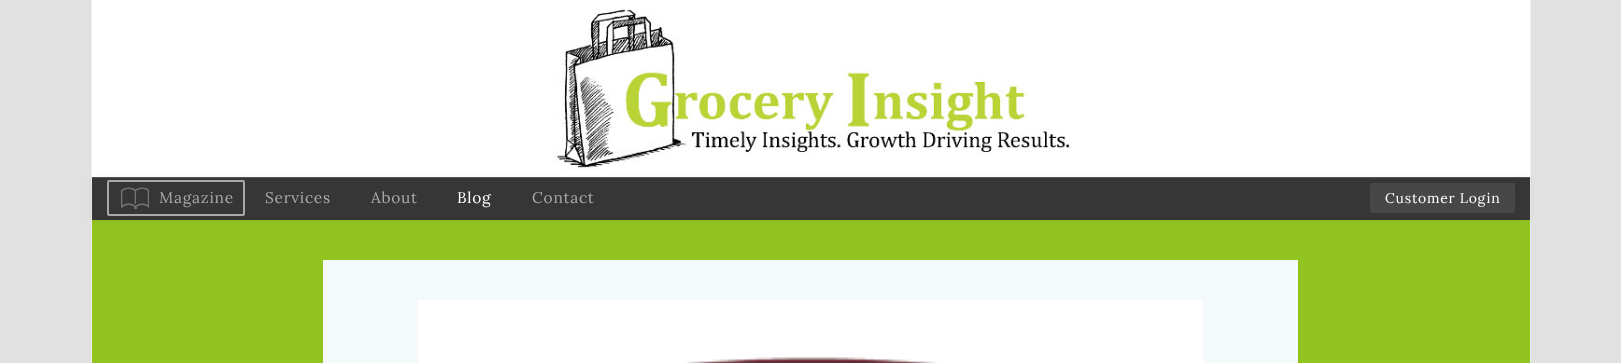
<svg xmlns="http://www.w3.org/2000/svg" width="1621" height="363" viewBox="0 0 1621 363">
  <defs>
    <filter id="blur1" x="-50%" y="-200%" width="200%" height="500%"><feGaussianBlur stdDeviation="2.5"/></filter>
  </defs>
  <rect width="100%" height="100%" fill="#e1e1e1"/>
  <rect x="92" y="0" width="1438" height="177" fill="#ffffff"/>
  <rect x="1530" y="0" width="1" height="363" fill="#ededed"/>
  <rect x="91" y="0" width="1" height="363" fill="#ededed"/>
  <image x="552" y="9" width="520" height="162" href="img1.png"/>
  <rect x="92" y="220" width="1438" height="143" fill="#92c420"/>
  <rect x="92" y="178" width="1438" height="43" fill="#000000" fill-opacity="0.07" filter="url(#blur1)"/>
  <rect x="92" y="178" width="1438" height="42" fill="#363636"/>
  <rect x="92" y="177" width="1438" height="1" fill="#545454"/>
  <rect x="108" y="181" width="136" height="34" rx="1" fill="none" stroke="#a9a9a9" stroke-width="2"/>
  <image x="121" y="187" width="28" height="22" href="img2.png"/>
  <text x="159" y="203" font-family="Lora" font-size="15.5" letter-spacing="0.75" fill="#a9a9a9">Magazine</text>
  <text x="265" y="203" font-family="Lora" font-size="15.5" letter-spacing="0.75" fill="#a9a9a9">Services</text>
  <text x="371" y="203" font-family="Lora" font-size="15.5" letter-spacing="0.75" fill="#a9a9a9">About</text>
  <text x="457" y="203" font-family="Lora" font-size="15.5" letter-spacing="0.75" fill="#ffffff">Blog</text>
  <text x="532" y="203" font-family="Lora" font-size="15.5" letter-spacing="0.75" fill="#a9a9a9">Contact</text>
  <rect x="1370" y="183" width="145" height="30" rx="2" fill="#474747"/>
  <text x="1385" y="203" font-family="Lora" font-size="14" letter-spacing="0.75" fill="#ffffff">Customer Login</text>
  <rect x="323" y="260" width="975" height="103" fill="#f4f9fc"/>
  <image x="418" y="300" width="785" height="63" href="img3.png"/>
</svg>
